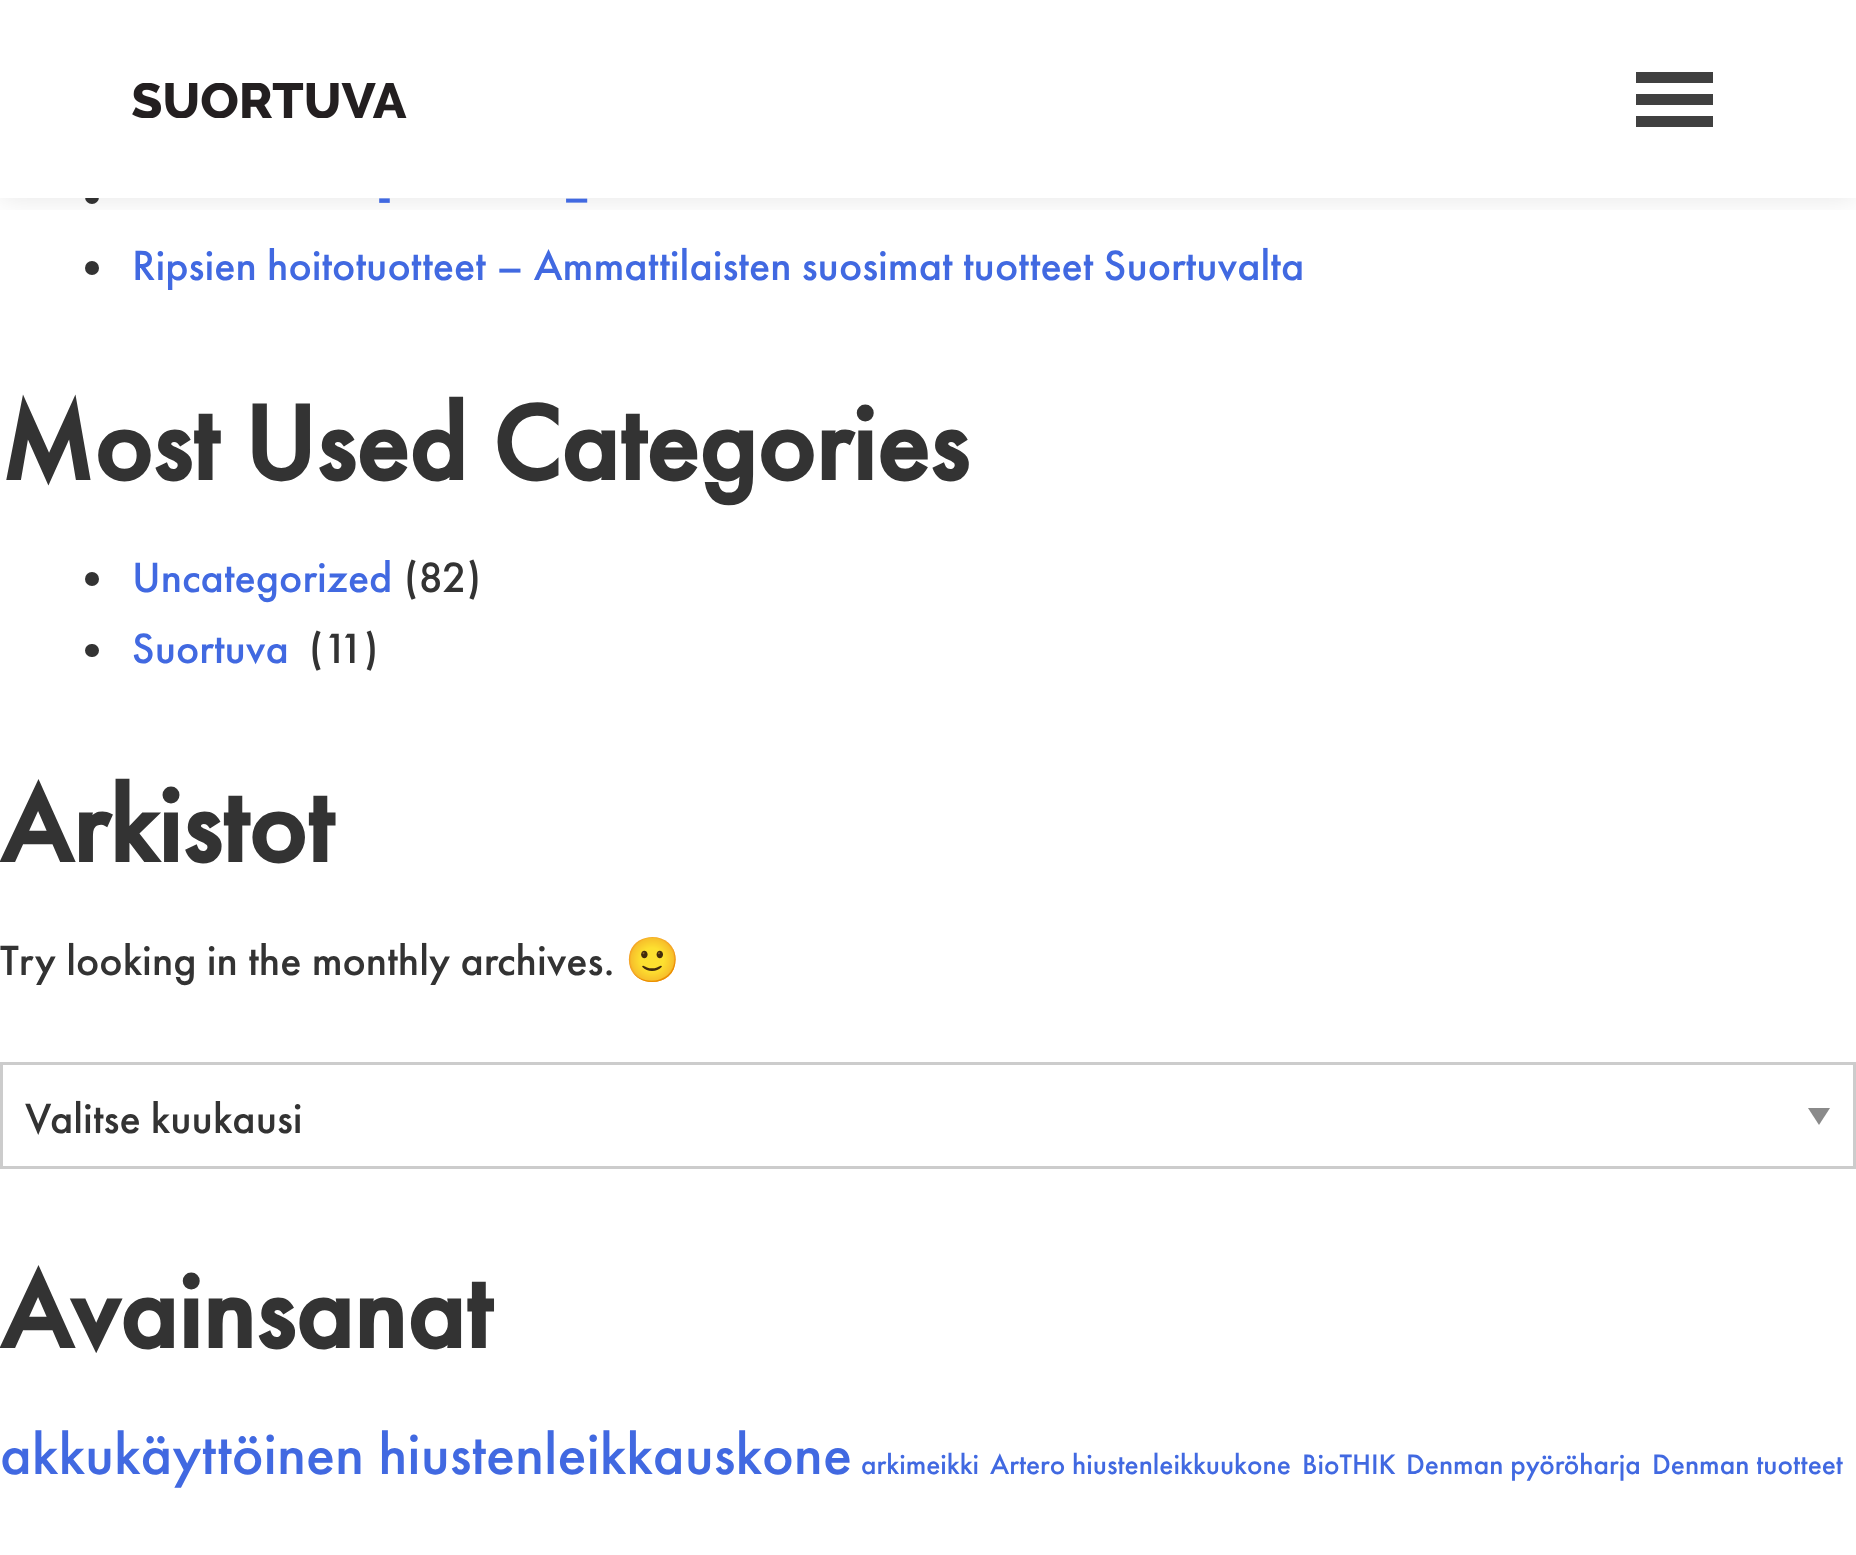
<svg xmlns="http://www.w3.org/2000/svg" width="1856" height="1555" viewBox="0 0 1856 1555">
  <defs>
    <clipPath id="clip1"><rect x="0" y="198" width="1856" height="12"/></clipPath>
    <filter id="blur1" x="-50%" y="-200%" width="200%" height="500%"><feGaussianBlur stdDeviation="14"/></filter>
  </defs>
  <rect width="100%" height="100%" fill="#ffffff"/>
  <circle cx="92" cy="197" r="7" fill="#333333"/>
  <rect x="85" y="190" width="14" height="8" fill="#ffffff"/>
  <g clip-path="url(#clip1)">
    <rect x="0" y="0" width="1856" height="198" fill="#000000" fill-opacity="0.1" filter="url(#blur1)"/>
  </g>
  <image x="132" y="83" width="275" height="35" href="img1.png"/>
  <rect x="1636" y="94" width="77" height="11" fill="#404040"/>
  <rect x="1636" y="72" width="77" height="11" fill="#404040"/>
  <rect x="1636" y="116" width="77" height="11" fill="#404040"/>
  <text x="377" y="210" font-family="Futura PT" font-size="44" font-weight="500" fill="#4169e1">-</text>
  <text x="563" y="210" font-family="Futura PT" font-size="44" font-weight="500" fill="#4169e1">–</text>
  <circle cx="92" cy="268" r="7" fill="#333333"/>
  <text x="132" y="280" font-family="Futura PT" font-size="44" font-weight="500" fill="#4169e1">Ripsien hoitotuotteet – Ammattilaisten suosimat tuotteet Suortuvalta</text>
  <text x="0" y="480" font-family="Futura PT" font-size="110" font-weight="bold" fill="#333333">Most Used Categories</text>
  <circle cx="92" cy="579" r="7" fill="#333333"/>
  <text x="132" y="592" font-family="Futura PT" font-size="44" font-weight="500" fill="#4169e1">Uncategorized</text>
  <text x="404" y="592" font-family="Futura PT" font-size="44" font-weight="500" fill="#333333">(82)</text>
  <rect x="85" y="644" width="14" height="13" rx="6.5" fill="#333333"/>
  <text x="132" y="663" font-family="Futura PT" font-size="44" font-weight="500" fill="#4169e1">Suortuva</text>
  <text x="309" y="663" font-family="Futura PT" font-size="44" font-weight="500" fill="#333333">(11)</text>
  <text x="0" y="862" font-family="Futura PT" font-size="110" font-weight="bold" fill="#333333">Arkistot</text>
  <text x="0" y="975" font-family="Futura PT" font-size="44" font-weight="500" fill="#333333">Try looking in the monthly archives.</text>
  <text x="625" y="975" font-family="Noto Color Emoji" font-size="44" fill="#333333">🙂</text>
  <path d="M1808 1108H1830L1819 1125Z" fill="#8a8a8a"/>
  <rect x="1.5" y="1063.5" width="1853" height="104" fill="none" stroke="#cccccc" stroke-width="3"/>
  <text x="25" y="1133" font-family="Futura PT" font-size="44" font-weight="500" fill="#333333">Valitse kuukausi</text>
  <text x="0" y="1348" font-family="Futura PT" font-size="110" font-weight="bold" fill="#333333">Avainsanat</text>
  <text x="0" y="1474" font-family="Futura PT" font-size="60.1" font-weight="500" fill="#4169e1">akkukäyttöinen hiustenleikkauskone</text>
  <text x="861" y="1474" font-family="Futura PT" font-size="29.25" font-weight="500" fill="#4169e1">arkimeikki</text>
  <text x="990" y="1474" font-family="Futura PT" font-size="29.25" font-weight="500" fill="#4169e1">Artero hiustenleikkuukone</text>
  <text x="1302" y="1474" font-family="Futura PT" font-size="29.25" font-weight="500" fill="#4169e1">BioTHIK</text>
  <text x="1406" y="1474" font-family="Futura PT" font-size="29.25" font-weight="500" fill="#4169e1">Denman pyöröharja</text>
  <text x="1652" y="1474" font-family="Futura PT" font-size="29.25" font-weight="500" fill="#4169e1">Denman tuotteet</text>
</svg>
